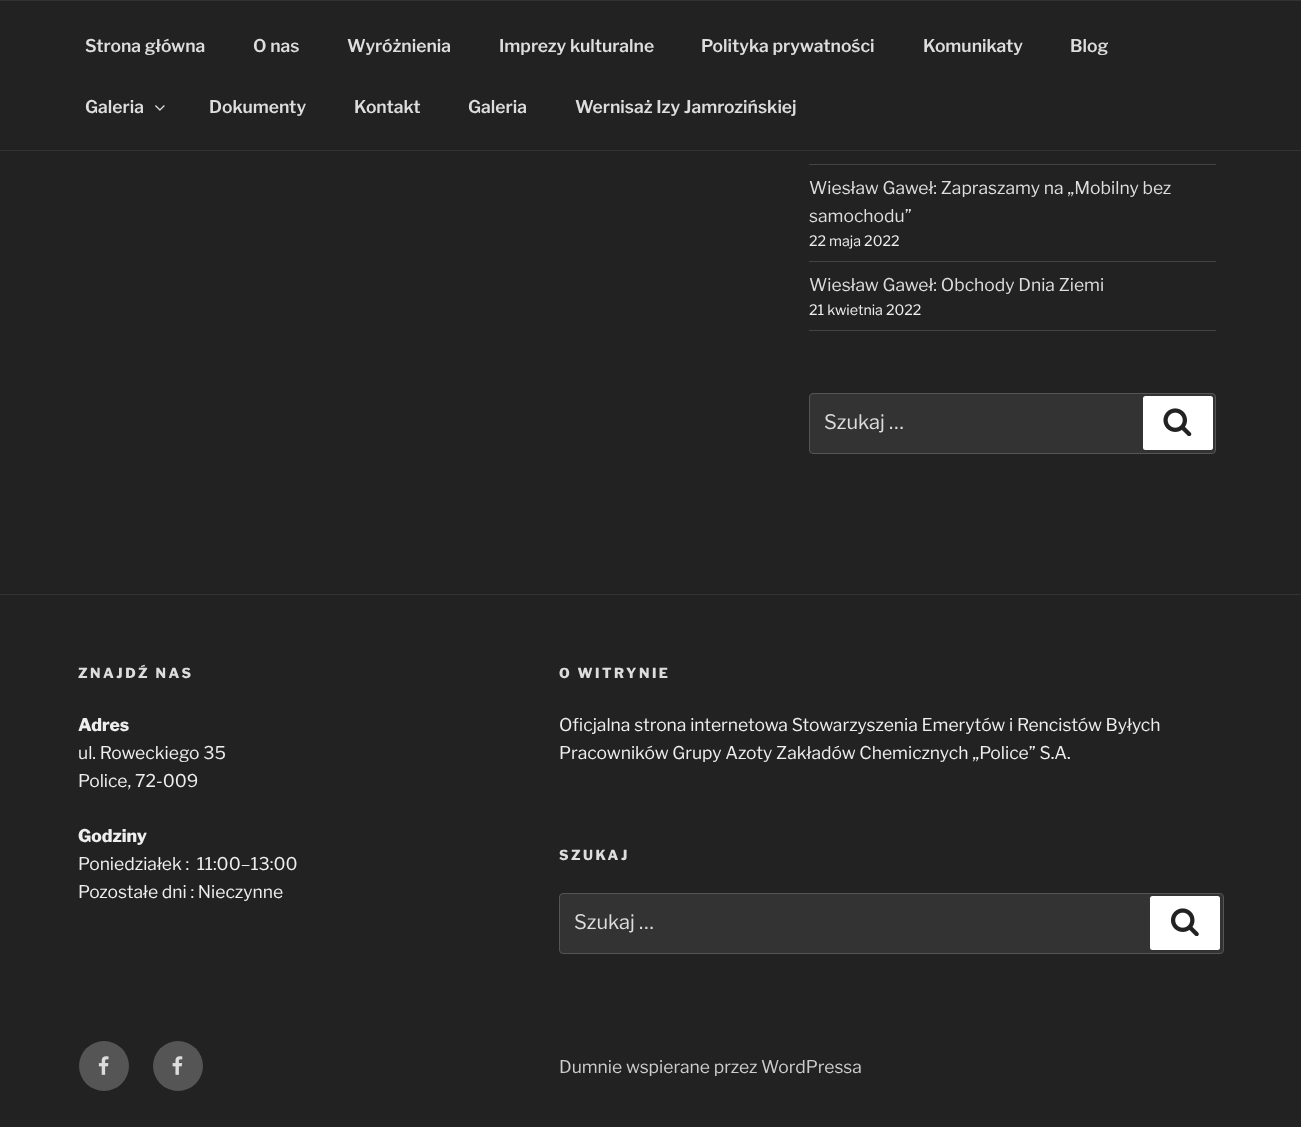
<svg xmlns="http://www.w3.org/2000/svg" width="1301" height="1127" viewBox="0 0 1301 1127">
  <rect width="100%" height="100%" fill="#222222"/>
  <rect x="0" y="0" width="1301" height="1" fill="#333333"/>
  <rect x="0" y="150" width="1301" height="1" fill="#333333"/>
  <text x="85" y="52" font-family="Libre Franklin" font-size="17.5" font-weight="600" fill="#dddddd">Strona główna</text>
  <text x="253" y="52" font-family="Libre Franklin" font-size="17.5" font-weight="600" fill="#dddddd">O nas</text>
  <text x="347" y="52" font-family="Libre Franklin" font-size="17.5" font-weight="600" fill="#dddddd">Wyróżnienia</text>
  <text x="499" y="52" font-family="Libre Franklin" font-size="17.5" font-weight="600" fill="#dddddd">Imprezy kulturalne</text>
  <text x="701" y="52" font-family="Libre Franklin" font-size="17.5" font-weight="600" fill="#dddddd">Polityka prywatności</text>
  <text x="923" y="52" font-family="Libre Franklin" font-size="17.5" font-weight="600" fill="#dddddd">Komunikaty</text>
  <text x="1070" y="52" font-family="Libre Franklin" font-size="17.5" font-weight="600" fill="#dddddd">Blog</text>
  <text x="85" y="113" font-family="Libre Franklin" font-size="17.5" font-weight="600" fill="#dddddd">Galeria</text>
  <image x="155" y="105" width="10" height="6" href="img1.png"/>
  <text x="209" y="113" font-family="Libre Franklin" font-size="17.5" font-weight="600" fill="#dddddd">Dokumenty</text>
  <text x="354" y="113" font-family="Libre Franklin" font-size="17.5" font-weight="600" fill="#dddddd">Kontakt</text>
  <text x="468" y="113" font-family="Libre Franklin" font-size="17.5" font-weight="600" fill="#dddddd">Galeria</text>
  <text x="575" y="113" font-family="Libre Franklin" font-size="17.5" font-weight="600" fill="#dddddd">Wernisaż Izy Jamrozińskiej</text>
  <rect x="809" y="164" width="407" height="1" fill="#444444"/>
  <rect x="809" y="261" width="407" height="1" fill="#444444"/>
  <text x="809" y="194" font-family="Libre Franklin" font-size="17.5" fill="#dddddd">Wiesław Gaweł: Zapraszamy na „Mobilny bez</text>
  <text x="809" y="222" font-family="Libre Franklin" font-size="17.5" fill="#dddddd">samochodu”</text>
  <text x="809" y="246" font-family="Libre Franklin" font-size="14.25" fill="#eeeeee">22 maja 2022</text>
  <rect x="809" y="330" width="407" height="1" fill="#444444"/>
  <text x="809" y="291" font-family="Libre Franklin" font-size="17.5" fill="#dddddd">Wiesław Gaweł: Obchody Dnia Ziemi</text>
  <text x="809" y="315" font-family="Libre Franklin" font-size="14.25" fill="#eeeeee">21 kwietnia 2022</text>
  <rect x="809.5" y="393.5" width="406" height="60" rx="3.5" fill="#333333" stroke="#555555"/>
  <text x="824" y="429" font-family="Libre Franklin" font-size="20" fill="#dddddd">Szukaj …</text>
  <rect x="1143" y="396" width="70" height="54" rx="2.5" fill="#ffffff"/>
  <image x="1163" y="408" width="29" height="28" href="img2.png"/>
  <rect x="0" y="594" width="1301" height="1" fill="#333333"/>
  <text x="78" y="678" font-family="Libre Franklin" font-size="13.75" font-weight="800" letter-spacing="2.5" fill="#dddddd">ZNAJDŹ NAS</text>
  <text x="78" y="731" font-family="Libre Franklin" font-size="17.5" font-weight="800" fill="#eeeeee">Adres</text>
  <text x="78" y="759" font-family="Libre Franklin" font-size="17.5" fill="#eeeeee">ul. Roweckiego 35</text>
  <text x="78" y="787" font-family="Libre Franklin" font-size="17.5" fill="#eeeeee">Police, 72-009</text>
  <text x="78" y="842" font-family="Libre Franklin" font-size="17.5" font-weight="800" fill="#eeeeee">Godziny</text>
  <text x="78" y="870" font-family="Libre Franklin" font-size="17.5" fill="#eeeeee" xml:space="preserve">Poniedziałek :  11:00–13:00</text>
  <text x="78" y="898" font-family="Libre Franklin" font-size="17.5" fill="#eeeeee">Pozostałe dni : Nieczynne</text>
  <text x="559" y="678" font-family="Libre Franklin" font-size="13.75" font-weight="800" letter-spacing="2.5" fill="#dddddd">O WITRYNIE</text>
  <text x="559" y="731" font-family="Libre Franklin" font-size="17.5" fill="#eeeeee">Oficjalna strona internetowa Stowarzyszenia Emerytów i Rencistów Byłych</text>
  <text x="559" y="759" font-family="Libre Franklin" font-size="17.5" fill="#eeeeee">Pracowników Grupy Azoty Zakładów Chemicznych „Police” S.A.</text>
  <text x="559" y="860" font-family="Libre Franklin" font-size="13.75" font-weight="800" letter-spacing="2.5" fill="#dddddd">SZUKAJ</text>
  <rect x="559.5" y="893.5" width="664" height="60" rx="3.5" fill="#333333" stroke="#555555"/>
  <text x="574" y="929" font-family="Libre Franklin" font-size="20" fill="#dddddd">Szukaj …</text>
  <rect x="1150" y="896" width="70" height="54" rx="2.5" fill="#ffffff"/>
  <image x="1170" y="908" width="29" height="28" href="img3.png"/>
  <circle cx="104" cy="1066" r="25" fill="#555555"/>
  <image x="98" y="1056" width="11" height="19" href="img4.png"/>
  <circle cx="178" cy="1066" r="25" fill="#555555"/>
  <image x="172" y="1056" width="11" height="19" href="img5.png"/>
  <text x="559" y="1073" font-family="Libre Franklin" font-size="17.5" fill="#cccccc">Dumnie wspierane przez WordPressa</text>
</svg>
